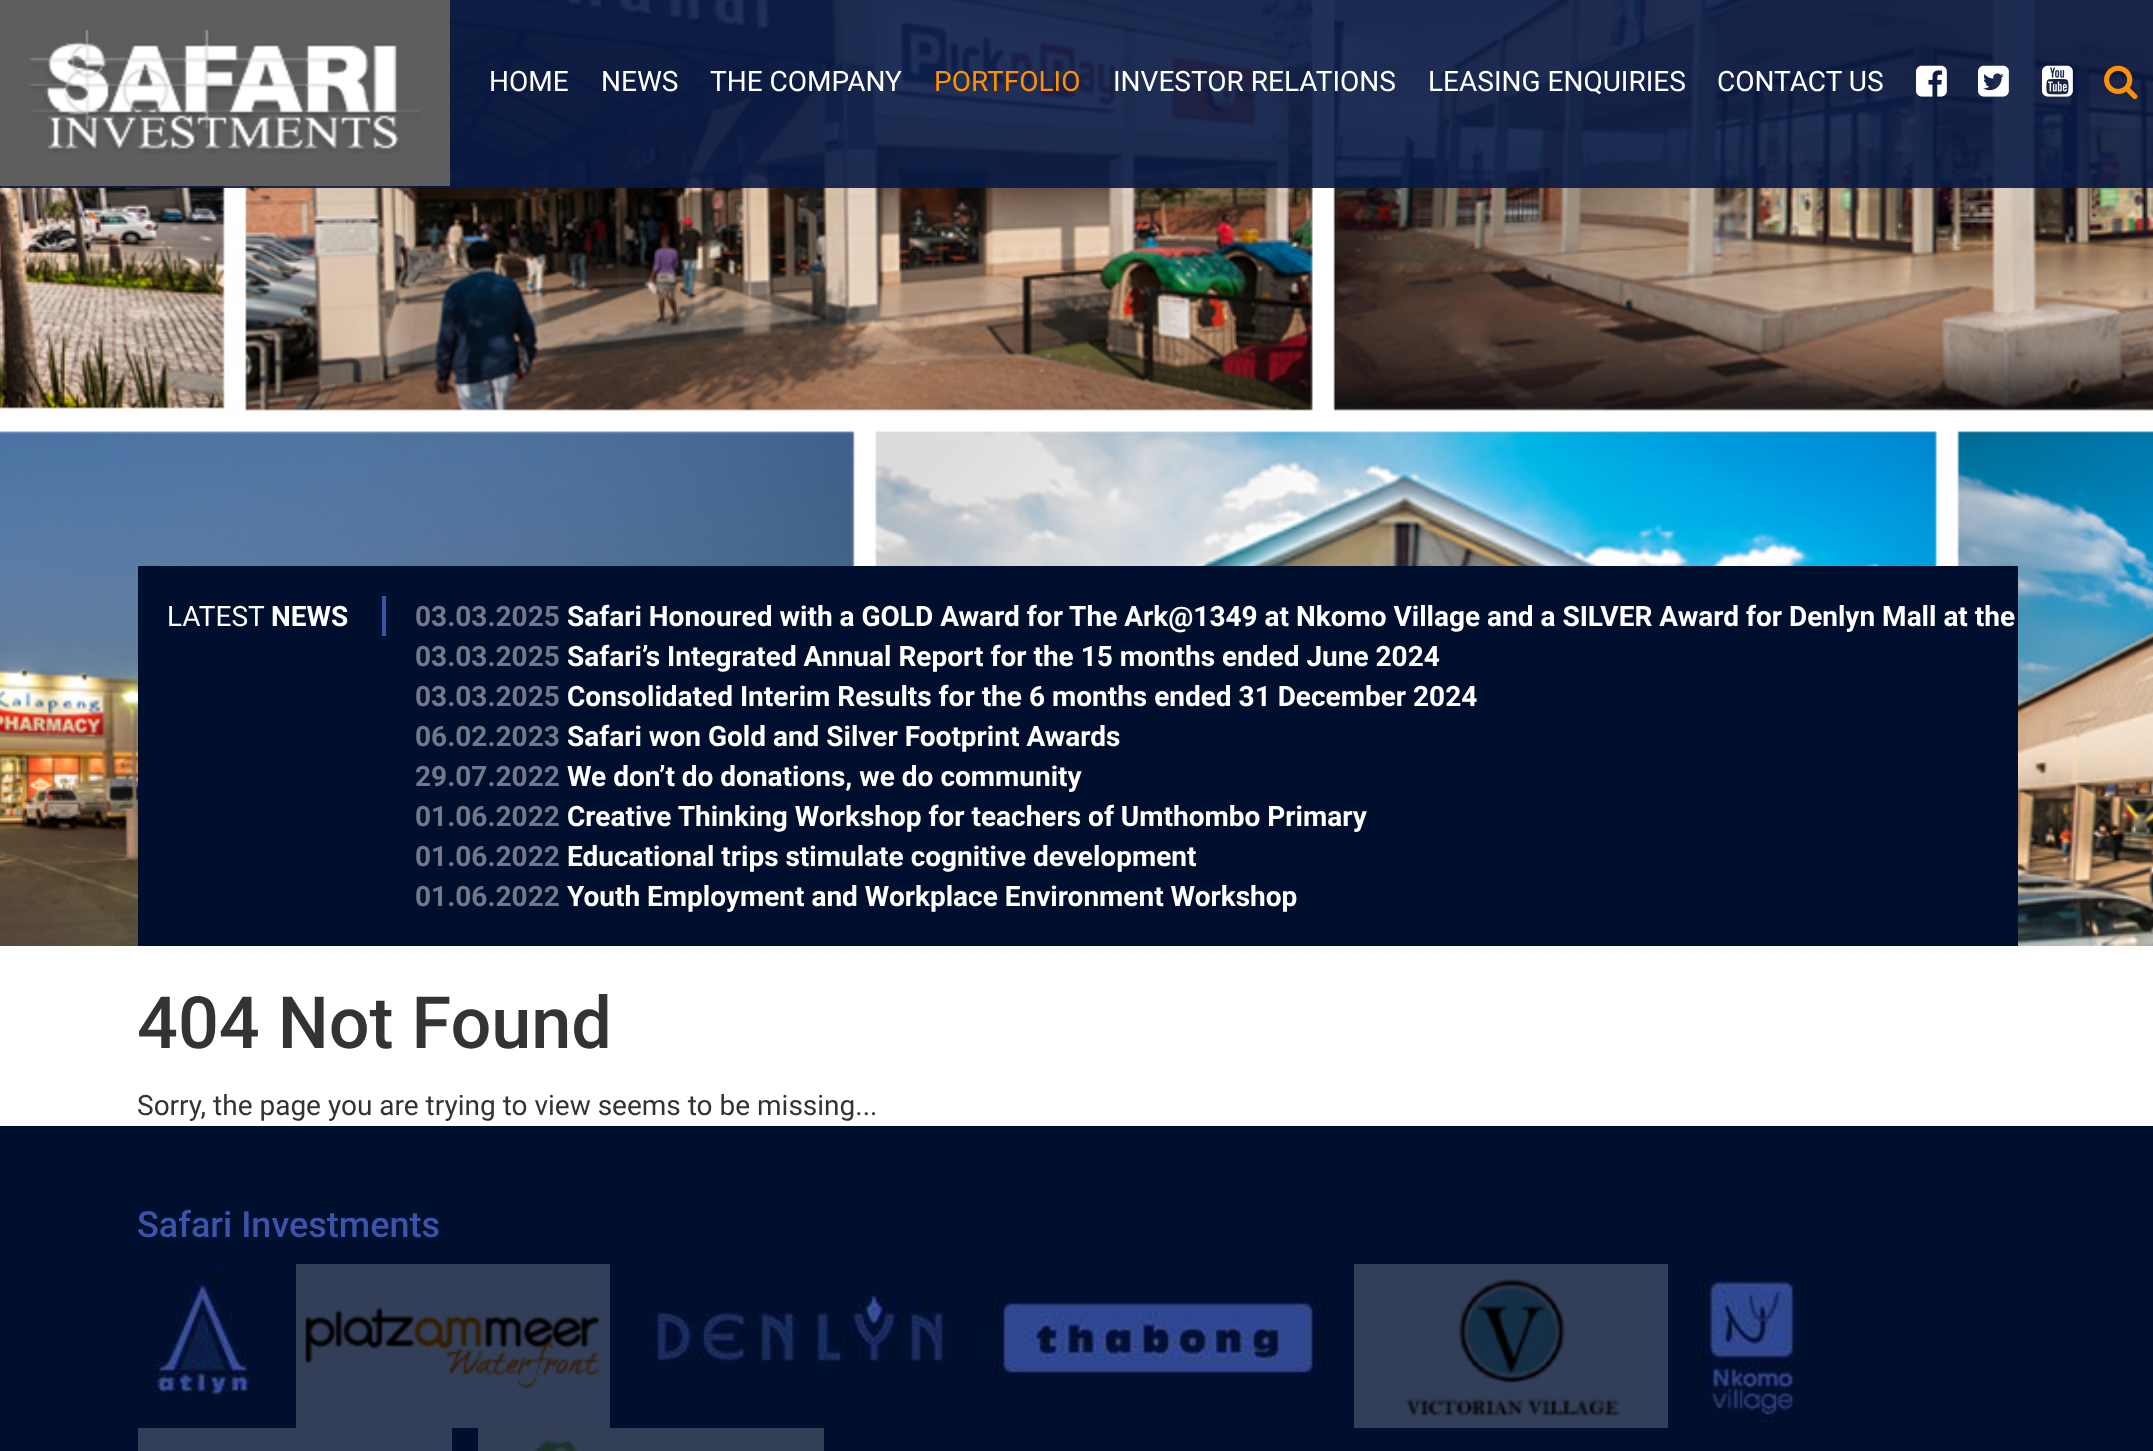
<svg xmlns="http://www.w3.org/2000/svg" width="2153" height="1451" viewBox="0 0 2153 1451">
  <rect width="100%" height="100%" fill="#ffffff"/>
  <image x="0" y="0" width="2153" height="946" href="img6.png"/>
  <rect x="0" y="0" width="2153" height="188" fill="#081945" fill-opacity="0.9"/>
  <rect x="0" y="0" width="450" height="186" fill="#5e5e5e"/>
  <image x="30" y="30" width="390" height="124" href="img1.png"/>
  <text x="489" y="91" font-family="Roboto" font-size="28" fill="#ffffff">HOME</text>
  <text x="601" y="91" font-family="Roboto" font-size="28" fill="#ffffff">NEWS</text>
  <text x="710" y="91" font-family="Roboto" font-size="28" fill="#ffffff">THE COMPANY</text>
  <text x="934" y="91" font-family="Roboto" font-size="28" fill="#ff9000">PORTFOLIO</text>
  <text x="1113" y="91" font-family="Roboto" font-size="28" fill="#ffffff">INVESTOR RELATIONS</text>
  <text x="1428" y="91" font-family="Roboto" font-size="28" fill="#ffffff">LEASING ENQUIRIES</text>
  <text x="1717" y="91" font-family="Roboto" font-size="28" fill="#ffffff">CONTACT US</text>
  <image x="1916" y="65" width="31" height="32" href="img2.png"/>
  <image x="1978" y="65" width="31" height="32" href="img3.png"/>
  <image x="2042" y="65" width="31" height="32" href="img4.png"/>
  <image x="2104" y="65" width="34" height="35" href="img5.png"/>
  <rect x="138" y="566" width="1880" height="380" fill="#000f2d"/>
  <rect x="382" y="596" width="4" height="40" fill="#3a54a9"/>
  <text x="167" y="626" font-family="Roboto" font-size="28" fill="#ffffff">LATEST</text>
  <text x="271" y="626" font-family="Roboto" font-size="28" font-weight="bold" fill="#ffffff">NEWS</text>
  <text x="415" y="626" font-family="Roboto" font-size="28" font-weight="bold" fill="#72798a">03.03.2025</text>
  <text x="567" y="626" font-family="Roboto" font-size="28" font-weight="bold" fill="#ffffff">Safari Honoured with a GOLD Award for The Ark@1349 at Nkomo Village and a SILVER Award for Denlyn Mall at the</text>
  <text x="415" y="666" font-family="Roboto" font-size="28" font-weight="bold" fill="#72798a">03.03.2025</text>
  <text x="567" y="666" font-family="Roboto" font-size="28" font-weight="bold" fill="#ffffff">Safari’s Integrated Annual Report for the 15 months ended June 2024</text>
  <text x="415" y="706" font-family="Roboto" font-size="28" font-weight="bold" fill="#72798a">03.03.2025</text>
  <text x="567" y="706" font-family="Roboto" font-size="28" font-weight="bold" fill="#ffffff">Consolidated Interim Results for the 6 months ended 31 December 2024</text>
  <text x="415" y="746" font-family="Roboto" font-size="28" font-weight="bold" fill="#72798a">06.02.2023</text>
  <text x="567" y="746" font-family="Roboto" font-size="28" font-weight="bold" fill="#ffffff">Safari won Gold and Silver Footprint Awards</text>
  <text x="415" y="786" font-family="Roboto" font-size="28" font-weight="bold" fill="#72798a">29.07.2022</text>
  <text x="567" y="786" font-family="Roboto" font-size="28" font-weight="bold" fill="#ffffff">We don’t do donations, we do community</text>
  <text x="415" y="826" font-family="Roboto" font-size="28" font-weight="bold" fill="#72798a">01.06.2022</text>
  <text x="567" y="826" font-family="Roboto" font-size="28" font-weight="bold" fill="#ffffff">Creative Thinking Workshop for teachers of Umthombo Primary</text>
  <text x="415" y="866" font-family="Roboto" font-size="28" font-weight="bold" fill="#72798a">01.06.2022</text>
  <text x="567" y="866" font-family="Roboto" font-size="28" font-weight="bold" fill="#ffffff">Educational trips stimulate cognitive development</text>
  <text x="415" y="906" font-family="Roboto" font-size="28" font-weight="bold" fill="#72798a">01.06.2022</text>
  <text x="567" y="906" font-family="Roboto" font-size="28" font-weight="bold" fill="#ffffff">Youth Employment and Workplace Environment Workshop</text>
  <text x="137" y="1048" font-family="Roboto" font-size="72" font-weight="500" fill="#333333">404 Not Found</text>
  <text x="137" y="1115" font-family="Roboto" font-size="28" fill="#333333">Sorry, the page you are trying to view seems to be missing...</text>
  <rect x="0" y="1126" width="2153" height="325" fill="#000f2d"/>
  <text x="137" y="1237" font-family="Roboto" font-size="36" font-weight="500" fill="#3a54a9">Safari Investments</text>
  <image x="138" y="1264" width="128" height="131" href="img7.png"/>
  <image x="296" y="1264" width="314" height="164" href="img8.png"/>
  <image x="636" y="1295" width="319" height="67" href="img9.png"/>
  <image x="990" y="1295" width="335" height="89" href="img10.png"/>
  <image x="1354" y="1264" width="314" height="164" href="img11.png"/>
  <image x="1696" y="1264" width="99" height="160" href="img12.png"/>
  <rect x="138" y="1428" width="314" height="23" fill="#333f59"/>
  <image x="478" y="1428" width="346" height="23" href="img13.png"/>
</svg>
